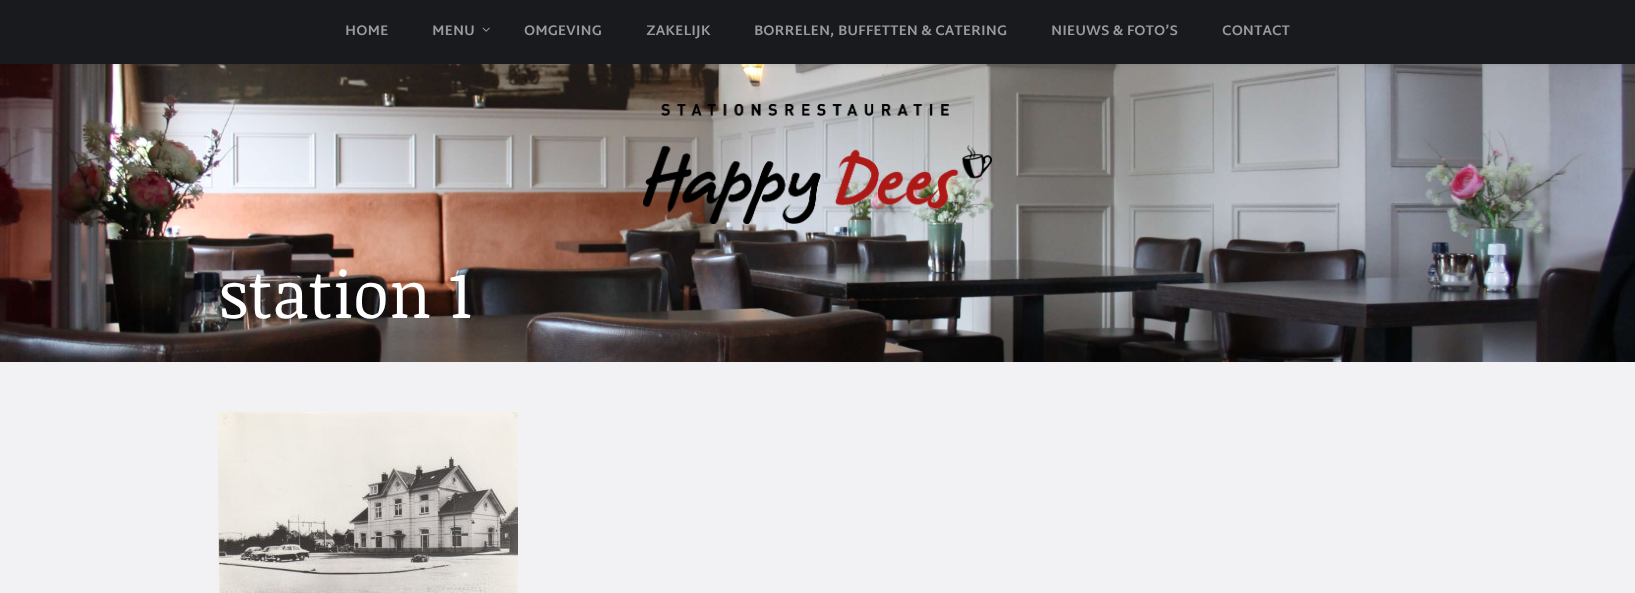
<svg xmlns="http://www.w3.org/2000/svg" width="1635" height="593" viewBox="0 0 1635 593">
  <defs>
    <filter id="blur1" x="-50%" y="-200%" width="200%" height="500%"><feGaussianBlur stdDeviation="2"/></filter>
  </defs>
  <rect width="100%" height="100%" fill="#f2f2f4"/>
  <image x="0" y="64" width="1635" height="298" href="img2.png"/>
  <rect x="1" y="1" width="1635" height="64" fill="#000000" fill-opacity="0.08" filter="url(#blur1)"/>
  <rect x="0" y="0" width="1635" height="64" fill="#181a1e"/>
  <text x="345" y="35" font-family="Martel Sans" font-size="14" font-weight="bold" fill="#9a9a9c">HOME</text>
  <text x="432" y="35" font-family="Martel Sans" font-size="14" font-weight="bold" fill="#9a9a9c">MENU</text>
  <image x="482" y="27" width="8" height="5" href="img1.png"/>
  <text x="524" y="35" font-family="Martel Sans" font-size="14" font-weight="bold" fill="#9a9a9c">OMGEVING</text>
  <text x="646" y="35" font-family="Martel Sans" font-size="14" font-weight="bold" fill="#9a9a9c">ZAKELIJK</text>
  <text x="754" y="35" font-family="Martel Sans" font-size="14" font-weight="bold" fill="#9a9a9c">BORRELEN, BUFFETTEN &amp; CATERING</text>
  <text x="1051" y="35" font-family="Martel Sans" font-size="14" font-weight="bold" fill="#9a9a9c">NIEUWS &amp; FOTO’S</text>
  <text x="1222" y="35" font-family="Martel Sans" font-size="14" font-weight="bold" fill="#9a9a9c">CONTACT</text>
  <image x="643" y="104" width="349" height="120" href="img3.png"/>
  <text x="218" y="318" font-family="Noticia Text" font-size="65" fill="#ffffff">station 1</text>
  <image x="218" y="412" width="300" height="181" href="img4.png"/>
</svg>
